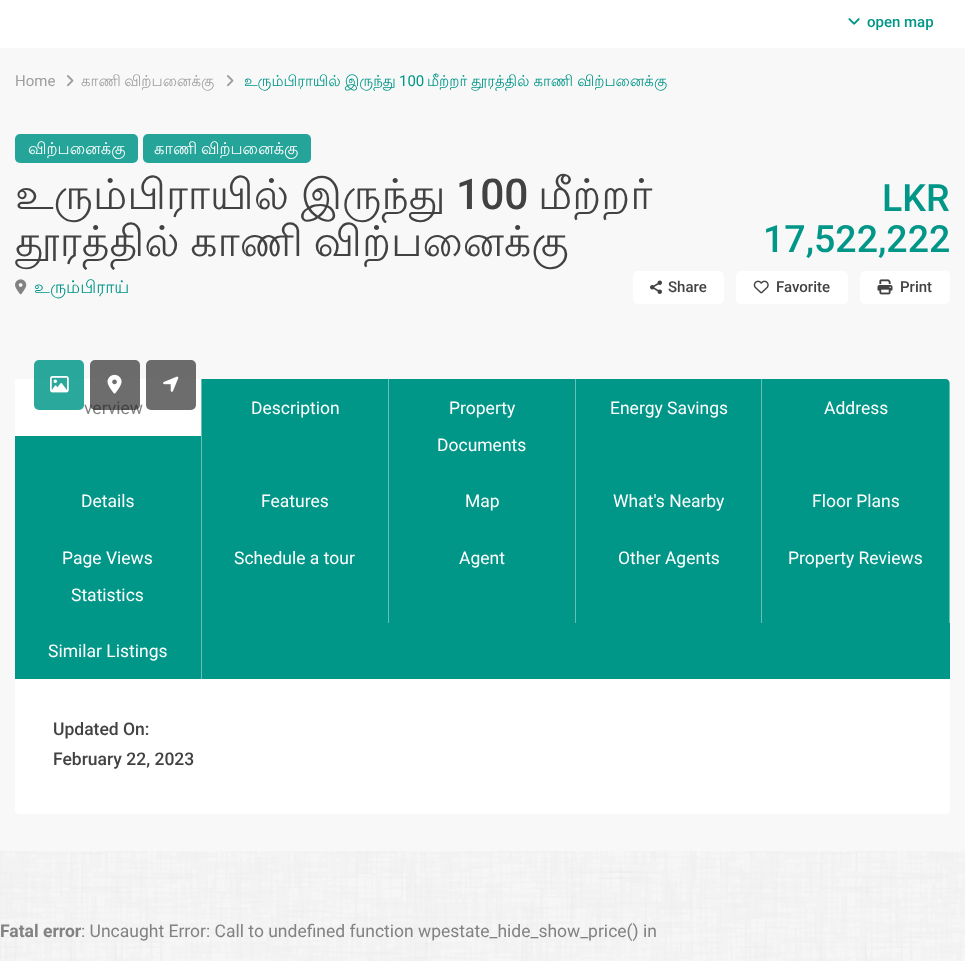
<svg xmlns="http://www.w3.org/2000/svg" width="965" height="961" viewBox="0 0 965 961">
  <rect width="100%" height="100%" fill="#ffffff"/>
  <image x="0" y="851" width="965" height="110" href="img1.png"/>
  <image x="848" y="18" width="12" height="7" href="img2.png"/>
  <text x="867" y="27" font-family="Roboto" font-size="15" font-weight="500" fill="#009688">open map</text>
  <rect x="0" y="48" width="965" height="803" fill="#f8f8f8"/>
  <text x="15" y="86" font-family="Roboto" font-size="15" fill="#9e9e9e">Home</text>
  <image x="67" y="75" width="7" height="12" href="img3.png"/>
  <text x="81" y="86" word-spacing="-1" font-family="Lohit Tamil" font-size="15" fill="#9e9e9e">காணி விற்பனைக்கு</text>
  <image x="227" y="75" width="7" height="12" href="img3.png"/>
  <text x="244" y="86" word-spacing="-0.5" font-family="Lohit Tamil" font-size="15" fill="#009688">உரும்பிராயில் இருந்து</text>
  <text x="399" y="86" font-family="Roboto" font-size="15" fill="#009688">100</text>
  <text x="427" y="86" word-spacing="-0.5" font-family="Lohit Tamil" font-size="15" fill="#009688">மீற்றர் தூரத்தில் காணி விற்பனைக்கு</text>
  <rect x="15" y="134" width="123" height="29" rx="5" fill="#25a599"/>
  <text x="28" y="154" font-family="Lohit Tamil" font-size="16.25" fill="#ffffff">விற்பனைக்கு</text>
  <rect x="143" y="134" width="168" height="29" rx="5" fill="#25a599"/>
  <text x="154" y="154" word-spacing="-1" font-family="Lohit Tamil" font-size="16.25" fill="#ffffff">காணி விற்பனைக்கு</text>
  <text x="15" y="209" word-spacing="-1" font-family="Lohit Tamil" font-size="42.5" fill="#424242">உரும்பிராயில் இருந்து</text>
  <text x="456" y="209" font-family="Roboto" font-size="42.5" font-weight="500" fill="#424242">100</text>
  <text x="538" y="209" font-family="Lohit Tamil" font-size="42.5" fill="#424242">மீற்றர்</text>
  <text x="15" y="256" word-spacing="-2" font-family="Lohit Tamil" font-size="42.5" fill="#424242">தூரத்தில் காணி விற்பனைக்கு</text>
  <text x="882" y="211" font-family="Roboto" font-size="37.5" font-weight="500" fill="#009688">LKR</text>
  <text x="763" y="252" font-family="Roboto" font-size="37.5" font-weight="500" fill="#009688">17,522,222</text>
  <image x="15" y="279" width="12" height="16" href="img4.png"/>
  <text x="34" y="293" font-family="Lohit Tamil" font-size="17.5" fill="#009688">உரும்பிராய்</text>
  <rect x="633" y="271" width="91" height="33" rx="5" fill="#ffffff"/>
  <image x="650" y="280" width="12" height="14" href="img5.png"/>
  <text x="668" y="292" font-family="Roboto" font-size="15" font-weight="500" fill="#424242">Share</text>
  <rect x="736" y="271" width="112" height="33" rx="5" fill="#ffffff"/>
  <image x="753" y="280" width="16" height="14" href="img6.png"/>
  <text x="776" y="292" font-family="Roboto" font-size="15" font-weight="500" fill="#424242">Favorite</text>
  <rect x="860" y="271" width="90" height="33" rx="5" fill="#ffffff"/>
  <image x="877" y="279" width="16" height="16" href="img7.png"/>
  <text x="900" y="292" font-family="Roboto" font-size="15" font-weight="500" fill="#424242">Print</text>
  <path d="M20 379H945C948 379 950 381 950 384V679H15V384C15 381 17 379 20 379Z" fill="#009688"/>
  <rect x="15" y="379" width="186" height="57" fill="#ffffff"/>
  <rect x="34" y="360" width="50" height="50" rx="5" fill="#009688" fill-opacity="0.83"/>
  <image x="50" y="376" width="19" height="17" href="img8.png"/>
  <text x="84" y="414" font-family="Roboto" font-size="17.5" fill="#828282">verview</text>
  <rect x="90" y="360" width="50" height="50" rx="5" fill="#222222" fill-opacity="0.66"/>
  <image x="107" y="374" width="15" height="20" href="img9.png"/>
  <rect x="146" y="360" width="50" height="50" rx="5" fill="#222222" fill-opacity="0.66"/>
  <image x="163" y="376" width="16" height="16" href="img10.png"/>
  <rect x="201" y="379" width="1" height="300" fill="#68c0b8"/>
  <rect x="388" y="379" width="1" height="244" fill="#68c0b8"/>
  <text x="251" y="414" font-family="Roboto" font-size="17.5" fill="#ffffff">Description</text>
  <rect x="575" y="379" width="1" height="244" fill="#68c0b8"/>
  <text x="449" y="414" font-family="Roboto" font-size="17.5" fill="#ffffff">Property</text>
  <text x="437" y="451" font-family="Roboto" font-size="17.5" fill="#ffffff">Documents</text>
  <rect x="761" y="379" width="1" height="244" fill="#68c0b8"/>
  <text x="610" y="414" font-family="Roboto" font-size="17.5" fill="#ffffff">Energy Savings</text>
  <rect x="949" y="379" width="1" height="94" fill="#fdfdfd" fill-opacity="0.41"/>
  <text x="824" y="414" font-family="Roboto" font-size="17.5" fill="#ffffff">Address</text>
  <text x="81" y="507" font-family="Roboto" font-size="17.5" fill="#ffffff">Details</text>
  <text x="261" y="507" font-family="Roboto" font-size="17.5" fill="#ffffff">Features</text>
  <text x="465" y="507" font-family="Roboto" font-size="17.5" fill="#ffffff">Map</text>
  <text x="613" y="507" font-family="Roboto" font-size="17.5" fill="#ffffff">What's Nearby</text>
  <rect x="949" y="473" width="1" height="150" fill="#68c0b8"/>
  <text x="812" y="507" font-family="Roboto" font-size="17.5" fill="#ffffff">Floor Plans</text>
  <text x="62" y="564" font-family="Roboto" font-size="17.5" fill="#ffffff">Page Views</text>
  <text x="71" y="601" font-family="Roboto" font-size="17.5" fill="#ffffff">Statistics</text>
  <text x="234" y="564" font-family="Roboto" font-size="17.5" fill="#ffffff">Schedule a tour</text>
  <text x="459" y="564" font-family="Roboto" font-size="17.5" fill="#ffffff">Agent</text>
  <text x="618" y="564" font-family="Roboto" font-size="17.5" fill="#ffffff">Other Agents</text>
  <text x="788" y="564" font-family="Roboto" font-size="17.5" fill="#ffffff">Property Reviews</text>
  <text x="48" y="657" font-family="Roboto" font-size="17.5" fill="#ffffff">Similar Listings</text>
  <path d="M15 679H950V809C950 812 948 814 945 814H20C17 814 15 812 15 809Z" fill="#ffffff"/>
  <text x="53" y="735" font-family="Roboto" font-size="17.5" font-weight="500" fill="#424242">Updated On:</text>
  <text x="53" y="765" font-family="Roboto" font-size="17.5" font-weight="500" fill="#424242">February 22, 2023</text>
  <text x="0" y="937" font-family="Roboto" font-size="17.5" font-weight="bold" fill="#828282">Fatal error</text>
  <text x="81" y="937" font-family="Roboto" font-size="17.5" fill="#828282">: Uncaught Error: Call to undefined function wpestate_hide_show_price() in</text>
</svg>
